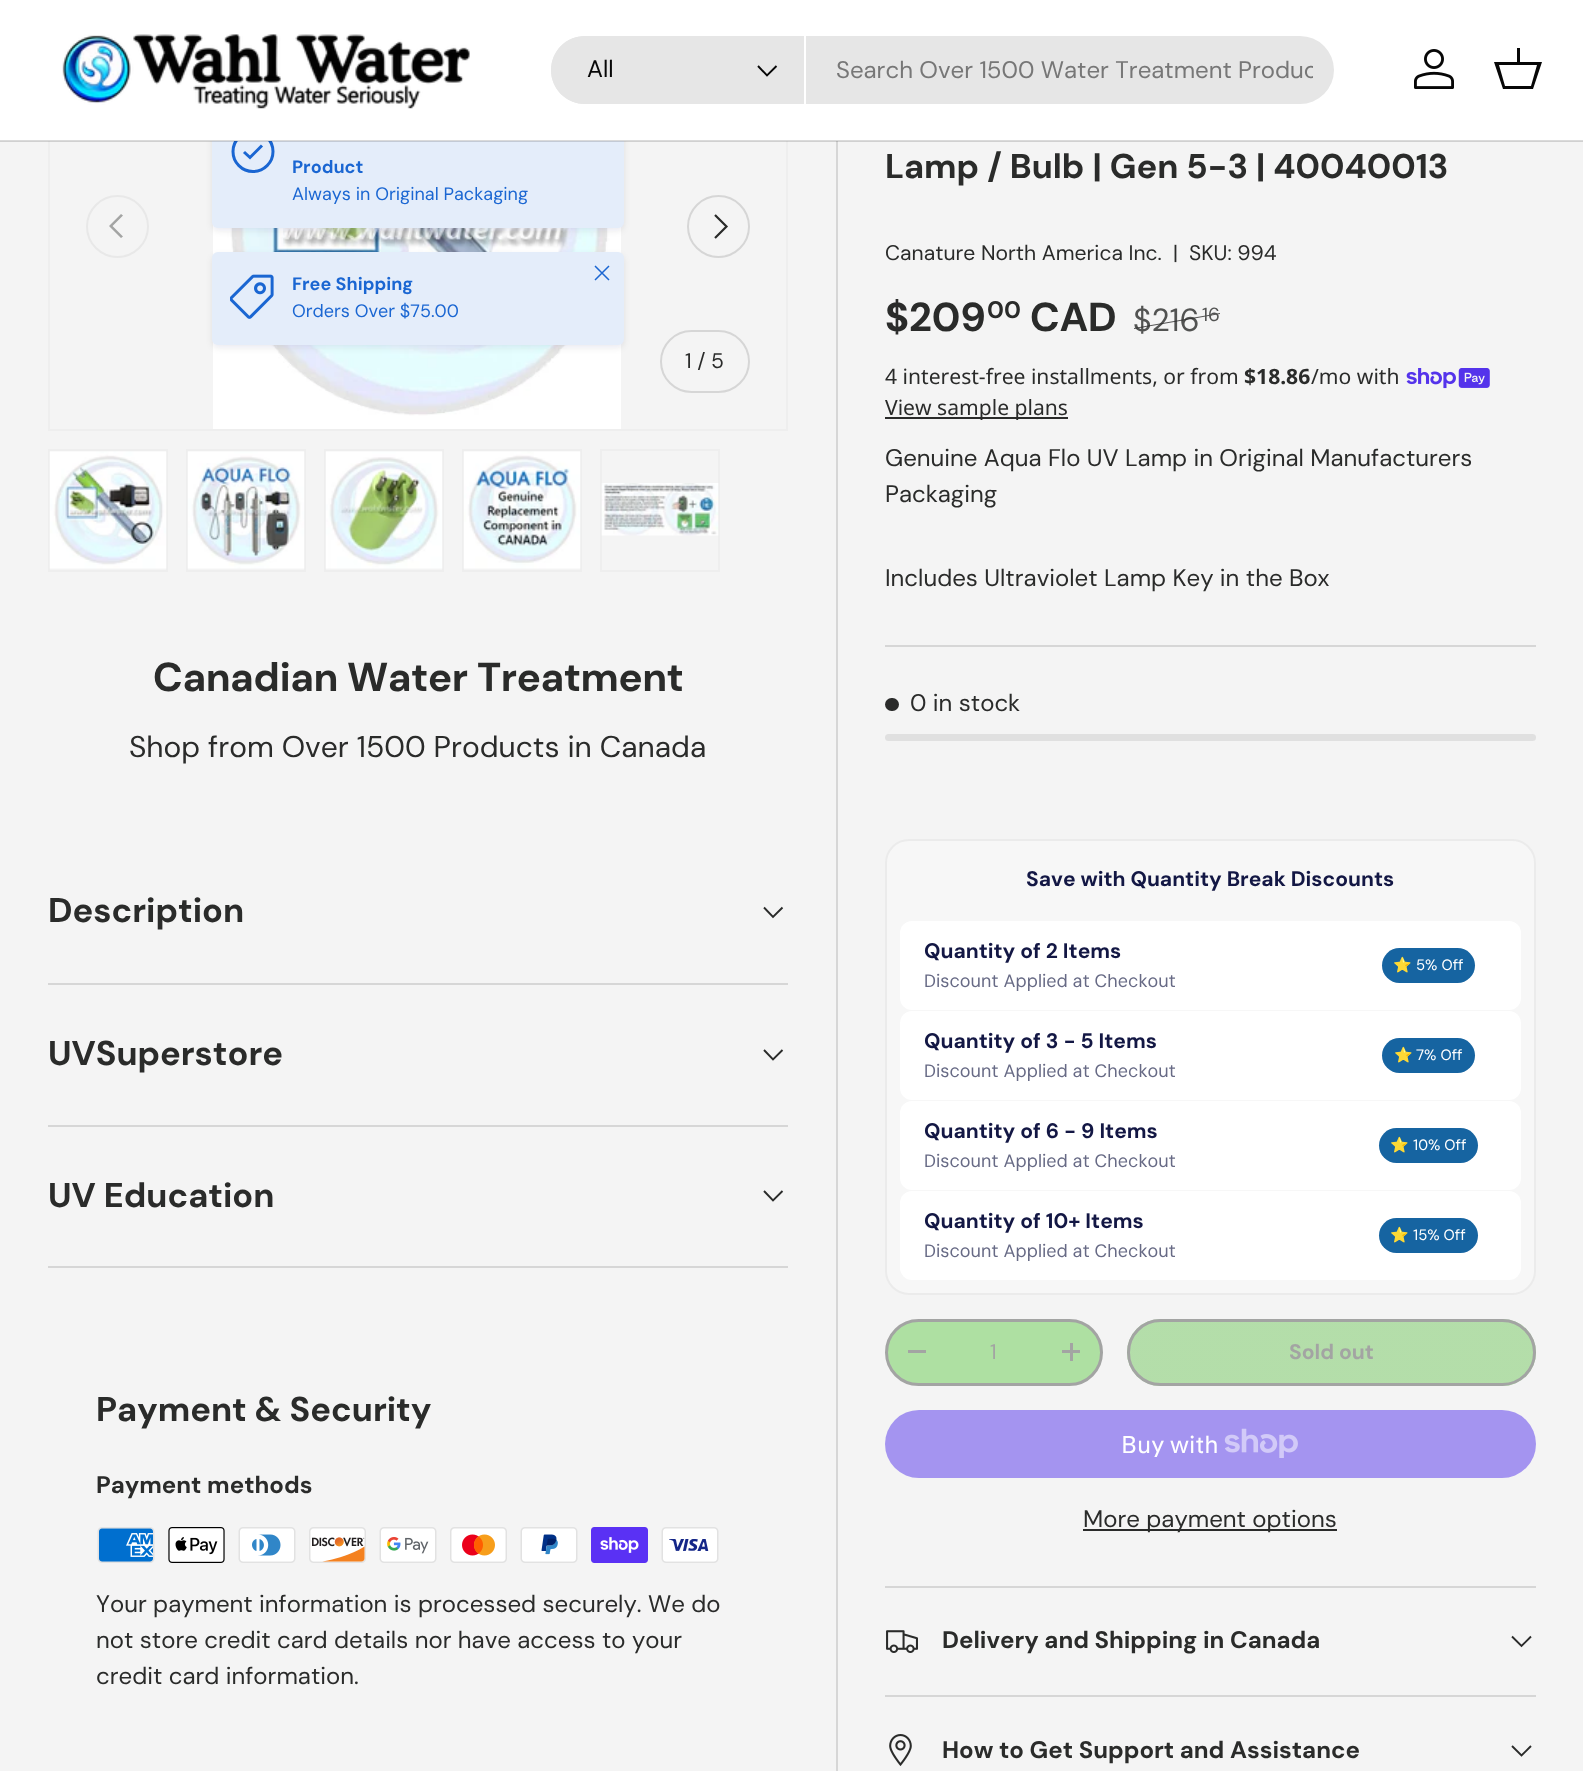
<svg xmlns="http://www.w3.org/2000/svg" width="1583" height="1771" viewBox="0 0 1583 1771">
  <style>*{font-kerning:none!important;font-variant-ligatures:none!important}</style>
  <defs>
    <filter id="blur1" x="-50%" y="-200%" width="200%" height="500%"><feGaussianBlur stdDeviation="3"/></filter>
    <clipPath id="clip1"><rect x="836" y="54" width="477" height="32"/></clipPath>
    <clipPath id="clip2"><rect x="1127" y="1319" width="409" height="67" rx="33.5"/></clipPath>
    <linearGradient id="g1" gradientUnits="userSpaceOnUse" x1="1158" y1="1208" x2="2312" y2="1496"><stop offset="0.6" stop-color="#a3a4a3" stop-opacity="0.07"/><stop offset="0.6" stop-color="#aee0a2"/><stop offset="1" stop-color="#aee0a2"/></linearGradient>
  </defs>
  <rect width="100%" height="100%" fill="#f4f4f4"/>
  <rect x="49" y="24" width="738" height="406" fill="none" stroke="#eeeeee" stroke-width="2"/>
  <image x="213" y="225" width="408" height="204" href="img4.png"/>
  <rect x="212" y="111" width="412" height="120" rx="6" fill="#212b36" fill-opacity="0.08" filter="url(#blur1)"/>
  <rect x="212" y="108" width="412" height="120" rx="6" fill="#e4edfa"/>
  <circle cx="253" cy="151.5" r="20" fill="none" stroke="#1a66d2" stroke-width="3"/>
  <rect x="0" y="0" width="1583" height="141" fill="#ffffff"/>
  <rect x="836" y="141" width="2" height="1630" fill="#d6d6d6"/>
  <rect x="0" y="140" width="1583" height="2" fill="#070707" fill-opacity="0.15"/>
  <image x="62" y="34" width="408" height="75" href="img1.png"/>
  <rect x="551" y="36" width="783" height="68" rx="34" fill="#e6e6e6"/>
  <path d="M585 36H806V104H585C566 104 551 89 551 70C551 51 566 36 585 36Z" fill="#e6e6e6"/>
  <rect x="804" y="36" width="2" height="68" fill="#ffffff"/>
  <text x="587" y="77" font-family="'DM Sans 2'" font-size="24" fill="#070707">All</text>
  <path d="M776.5 66L767 75.5L758 66" fill="none" stroke="#070707" stroke-width="1.9"/>
  <g clip-path="url(#clip1)">
    <text x="836" y="78" font-family="'DM Sans 2'" font-size="24" fill="#777777">Search Over 1500 Water Treatment</text>
    <text x="1238" y="78" font-family="'DM Sans 2'" font-size="24" fill="#777777">Produc</text>
  </g>
  <image x="1414" y="49" width="40" height="40" href="img2.png"/>
  <path d="M1517 62V48H1520V62H1542L1533 89H1503L1494 62ZM1499 65L1505 86H1531L1537 65Z" fill="#070707"/>
  <path d="M262 145.5L250 157.5L244 152" fill="none" stroke="#1a66d2" stroke-width="3"/>
  <text x="292" y="173" font-family="'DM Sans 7'" font-size="18" font-weight="bold" fill="#1a66d2">Product</text>
  <text x="292" y="200" font-family="'DM Sans 7'" font-size="18" fill="#1a66d2">Always in Original Packaging</text>
  <rect x="212" y="255" width="412" height="93" rx="6" fill="#212b36" fill-opacity="0.08" filter="url(#blur1)"/>
  <rect x="212" y="252" width="412" height="93" rx="6" fill="#e4edfa"/>
  <image x="230" y="274" width="44" height="45" href="img3.png"/>
  <text x="292" y="290" font-family="'DM Sans 7'" font-size="18" font-weight="bold" fill="#1a66d2">Free Shipping</text>
  <text x="292" y="317" font-family="'DM Sans 7'" font-size="18" fill="#1a66d2">Orders Over $75.00</text>
  <path d="M595 280L609 266M595 266L609 280" fill="none" stroke="#1a66d2" stroke-width="1.5" stroke-linejoin="round"/>
  <circle cx="117.5" cy="226.5" r="30.5" fill="none" stroke="#e8e8e8" stroke-width="2"/>
  <path d="M109 226L121 214L123 215.5L112.5 226L123 236.5L121 238Z" fill="#a3a4a3"/>
  <circle cx="718.5" cy="226.5" r="30.5" fill="none" stroke="#d6d6d6" stroke-width="2"/>
  <path d="M715 215L726.5 226.5L715 238" fill="none" stroke="#2a2b2a" stroke-width="2.2"/>
  <rect x="661" y="331" width="88" height="61" rx="30.5" fill="none" stroke="#d6d6d6" stroke-width="2"/>
  <text x="685" y="368" font-family="'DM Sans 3'" font-size="21.1" fill="#2a2b2a">1 / 5</text>
  <rect x="49" y="450" width="118" height="121" fill="none" stroke="#eeeeee" stroke-width="2"/>
  <image x="49" y="451" width="118" height="118" href="img5.png"/>
  <rect x="187" y="450" width="118" height="121" fill="none" stroke="#eeeeee" stroke-width="2"/>
  <image x="187" y="451" width="118" height="118" href="img6.png"/>
  <rect x="325" y="450" width="118" height="121" fill="none" stroke="#eeeeee" stroke-width="2"/>
  <image x="325" y="451" width="118" height="118" href="img7.png"/>
  <rect x="463" y="450" width="118" height="121" fill="none" stroke="#eeeeee" stroke-width="2"/>
  <image x="463" y="451" width="118" height="118" href="img8.png"/>
  <rect x="601" y="450" width="118" height="121" fill="none" stroke="#eeeeee" stroke-width="2"/>
  <image x="601" y="483" width="118" height="53" href="img9.png"/>
  <text x="885" y="178" font-family="'DM Sans 2'" font-size="34.4" font-weight="bold" fill="#2a2b2a">Lamp / Bulb | Gen 5-3 | 40040013</text>
  <text x="885" y="260" font-family="'DM Sans 3'" font-size="21.1" fill="#2a2b2a">Canature North America Inc.</text>
  <text x="1173" y="260" font-family="'DM Sans 3'" font-size="21.1" fill="#2a2b2a">|</text>
  <text x="1189" y="260" font-family="'DM Sans 3'" font-size="21.1" fill="#2a2b2a">SKU: 994</text>
  <text x="885" y="331" font-family="DM Sans" font-size="40.4" font-weight="bold" fill="#2a2b2a">$209</text>
  <text x="987" y="318" font-family="'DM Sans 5'" font-size="24" font-weight="bold" fill="#2a2b2a">00</text>
  <text x="1030" y="331" font-family="DM Sans" font-size="40.4" font-weight="bold" fill="#2a2b2a">CAD</text>
  <text x="1133" y="331" font-family="'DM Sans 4'" font-size="32" fill="#525352">$216</text>
  <path d="M1134 328L1220 313V314L1134 329Z" fill="#2a2b2a" fill-opacity="0.8"/>
  <text x="1202" y="321" font-family="'DM Sans 5'" font-size="19" fill="#525352">16</text>
  <text x="885" y="384" font-family="Noto Sans" font-size="21.1" fill="#2a2b2a">4 interest-free installments, or from</text>
  <text x="1244" y="384" font-family="Noto Sans" font-size="21.1" font-weight="bold" fill="#2a2b2a">$18.86</text>
  <text x="1311" y="384" font-family="Noto Sans" font-size="21.1" fill="#2a2b2a">/mo with</text>
  <image x="1406" y="368" width="84" height="21" href="img10.png"/>
  <rect x="885" y="417" width="183" height="2" fill="#2a2b2a"/>
  <text x="885" y="415" font-family="Noto Sans" font-size="21.1" fill="#2a2b2a">View sample plans</text>
  <text x="885" y="466" font-family="'DM Sans 2'" font-size="24" fill="#2a2b2a">Genuine Aqua Flo UV Lamp in Original Manufacturers</text>
  <text x="885" y="502" font-family="'DM Sans 2'" font-size="24" fill="#2a2b2a">Packaging</text>
  <text x="885" y="586" font-family="'DM Sans 2'" font-size="24" fill="#2a2b2a">Includes Ultraviolet Lamp Key in the Box</text>
  <rect x="885" y="645" width="651" height="2" fill="#d6d6d6"/>
  <rect x="885" y="698" width="14" height="13" rx="6.5" fill="#2a2b2a"/>
  <text x="910" y="711" font-family="'DM Sans 2'" font-size="24" fill="#2a2b2a">0 in stock</text>
  <rect x="885" y="734" width="651" height="7" rx="3.5" fill="#e0e0e0"/>
  <rect x="886" y="840" width="649" height="454" rx="23" fill="#f7f7f7" stroke="#ebebeb" stroke-width="2"/>
  <text x="1026" y="886" font-family="'DM Sans 4'" font-size="21" font-weight="bold" fill="#131744">Save with Quantity Break Discounts</text>
  <rect x="900" y="921" width="621" height="89" rx="12" fill="#ffffff"/>
  <text x="924" y="958" font-family="'DM Sans 4'" font-size="21" font-weight="bold" fill="#131744">Quantity of 2 Items</text>
  <text x="924" y="987" font-family="'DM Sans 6'" font-size="18" fill="#676a85">Discount Applied at Checkout</text>
  <rect x="1382" y="948" width="93" height="35" rx="17.5" fill="#1664a1"/>
  <text x="1393" y="970" font-family="Noto Color Emoji" font-size="15" fill="#ffffff">⭐</text>
  <text x="1416" y="970" font-family="'DM Sans 6'" font-size="15" fill="#ffffff">5% Off</text>
  <rect x="900" y="1011" width="621" height="89" rx="12" fill="#ffffff"/>
  <text x="924" y="1048" font-family="'DM Sans 4'" font-size="21" font-weight="bold" fill="#131744">Quantity of 3 - 5 Items</text>
  <text x="924" y="1077" font-family="'DM Sans 6'" font-size="18" fill="#676a85">Discount Applied at Checkout</text>
  <rect x="1382" y="1038" width="93" height="35" rx="17.5" fill="#1664a1"/>
  <text x="1394" y="1060" font-family="Noto Color Emoji" font-size="15" fill="#ffffff">⭐</text>
  <text x="1416" y="1060" font-family="'DM Sans 6'" font-size="15" fill="#ffffff">7% Off</text>
  <rect x="900" y="1101" width="621" height="89" rx="12" fill="#ffffff"/>
  <text x="924" y="1138" font-family="'DM Sans 4'" font-size="21" font-weight="bold" fill="#131744">Quantity of 6 - 9 Items</text>
  <text x="924" y="1167" font-family="'DM Sans 6'" font-size="18" fill="#676a85">Discount Applied at Checkout</text>
  <rect x="1379" y="1128" width="99" height="35" rx="17.5" fill="#1664a1"/>
  <text x="1390" y="1150" font-family="Noto Color Emoji" font-size="15" fill="#ffffff">⭐</text>
  <text x="1413" y="1150" font-family="'DM Sans 6'" font-size="15" fill="#ffffff">10% Off</text>
  <rect x="900" y="1191" width="621" height="89" rx="12" fill="#ffffff"/>
  <text x="924" y="1228" font-family="'DM Sans 4'" font-size="21" font-weight="bold" fill="#131744">Quantity of 10+ Items</text>
  <text x="924" y="1257" font-family="'DM Sans 6'" font-size="18" fill="#676a85">Discount Applied at Checkout</text>
  <rect x="1379" y="1218" width="99" height="35" rx="17.5" fill="#1664a1"/>
  <text x="1390" y="1240" font-family="Noto Color Emoji" font-size="15" fill="#ffffff">⭐</text>
  <text x="1413" y="1240" font-family="'DM Sans 6'" font-size="15" fill="#ffffff">15% Off</text>
  <rect x="886.5" y="1320.5" width="215" height="64" rx="32" fill="#aee0a2" stroke="#a3a4a3" stroke-width="3"/>
  <rect x="908" y="1350" width="18" height="3" fill="#a3a4a3"/>
  <text x="990" y="1359" font-family="'DM Sans 3'" font-size="21.1" fill="#a3a4a3">1</text>
  <rect x="1062" y="1350" width="18" height="3" fill="#a3a4a3"/>
  <rect x="1070" y="1343" width="3" height="18" fill="#a3a4a3"/>
  <rect x="1127" y="1319" width="409" height="67" rx="33.5" fill="#b5e2aa"/>
  <g clip-path="url(#clip2)">
    <rect x="1130" y="1322" width="406" height="61" fill="url(#g1)"/>
  </g>
  <rect x="1128.5" y="1320.5" width="406" height="64" rx="32" fill="none" stroke="#a3a4a3" stroke-width="3"/>
  <text x="1289" y="1359" font-family="'DM Sans 6'" font-size="21.1" font-weight="bold" fill="#a3a4a3">Sold out</text>
  <rect x="885" y="1410" width="651" height="68" rx="34" fill="#a494f0"/>
  <text x="1121" y="1453" font-family="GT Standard" font-size="24" fill="#ffffff">Buy with</text>
  <image x="1224" y="1428" width="74" height="30" href="img11.png"/>
  <rect x="1083" y="1529" width="254" height="2" fill="#2a2b2a"/>
  <text x="1083" y="1527" font-family="'DM Sans 2'" font-size="24" fill="#2a2b2a">More payment options</text>
  <rect x="885" y="1586" width="651" height="2" fill="#d6d6d6"/>
  <rect x="885" y="1695" width="651" height="2" fill="#d6d6d6"/>
  <image x="886" y="1630" width="32" height="23" href="img12.png"/>
  <text x="942" y="1648" font-family="'DM Sans 3'" font-size="24" font-weight="bold" fill="#2a2b2a">Delivery and Shipping in Canada</text>
  <path d="M1531 1636.5L1521.5 1646L1512 1636.5" fill="none" stroke="#2a2b2a" stroke-width="1.9"/>
  <image x="889" y="1734" width="23" height="32" href="img13.png"/>
  <text x="942" y="1758" font-family="'DM Sans 3'" font-size="24" font-weight="bold" fill="#2a2b2a">How to Get Support and Assistance</text>
  <path d="M1531 1746L1521.5 1755.5L1512 1746" fill="none" stroke="#2a2b2a" stroke-width="1.9"/>
  <text x="153" y="691" font-family="DM Sans" font-size="40.4" font-weight="bold" fill="#2a2b2a">Canadian Water Treatment</text>
  <text x="129" y="757" font-family="DM Sans" font-size="30" fill="#2a2b2a">Shop from Over 1500 Products in Canada</text>
  <rect x="48" y="983" width="740" height="2" fill="#d6d6d6"/>
  <text x="48" y="922" font-family="'DM Sans 2'" font-size="34.4" font-weight="bold" fill="#2a2b2a">Description</text>
  <path d="M782.5 907.5L773 917L764 907.5" fill="none" stroke="#2a2b2a" stroke-width="1.9"/>
  <rect x="48" y="1125" width="740" height="2" fill="#d6d6d6"/>
  <text x="48" y="1065" font-family="'DM Sans 2'" font-size="34.4" font-weight="bold" fill="#2a2b2a">UVSuperstore</text>
  <path d="M782.5 1050L773 1059.5L764 1050" fill="none" stroke="#2a2b2a" stroke-width="1.9"/>
  <rect x="48" y="1266" width="740" height="2" fill="#d6d6d6"/>
  <text x="48" y="1207" font-family="'DM Sans 2'" font-size="34.4" font-weight="bold" fill="#2a2b2a">UV Education</text>
  <path d="M782.5 1191L773 1200.5L764 1191" fill="none" stroke="#2a2b2a" stroke-width="1.9"/>
  <text x="96" y="1421" font-family="'DM Sans 2'" font-size="34.4" font-weight="bold" fill="#2a2b2a">Payment &amp; Security</text>
  <text x="96" y="1493" font-family="'DM Sans 3'" font-size="24" font-weight="bold" fill="#2a2b2a">Payment methods</text>
  <image x="97" y="1527" width="58" height="36" href="img14.png"/>
  <image x="168" y="1527" width="57" height="36" href="img15.png"/>
  <image x="238" y="1527" width="58" height="36" href="img16.png"/>
  <image x="309" y="1527" width="57" height="36" href="img17.png"/>
  <image x="379" y="1527" width="58" height="36" href="img18.png"/>
  <image x="450" y="1527" width="57" height="36" href="img19.png"/>
  <image x="520" y="1527" width="58" height="36" href="img20.png"/>
  <image x="591" y="1527" width="57" height="36" href="img21.png"/>
  <image x="661" y="1527" width="58" height="36" href="img22.png"/>
  <text x="96" y="1612" font-family="'DM Sans 2'" font-size="24" fill="#2a2b2a">Your payment information is processed securely.</text>
  <text x="648" y="1612" font-family="'DM Sans 2'" font-size="24" fill="#2a2b2a">We do</text>
  <text x="96" y="1648" font-family="'DM Sans 2'" font-size="24" fill="#2a2b2a">not store credit card details nor have access to</text>
  <text x="632" y="1648" font-family="'DM Sans 2'" font-size="24" fill="#2a2b2a">your</text>
  <text x="96" y="1684" font-family="'DM Sans 2'" font-size="24" fill="#2a2b2a">credit card information.</text>
</svg>
